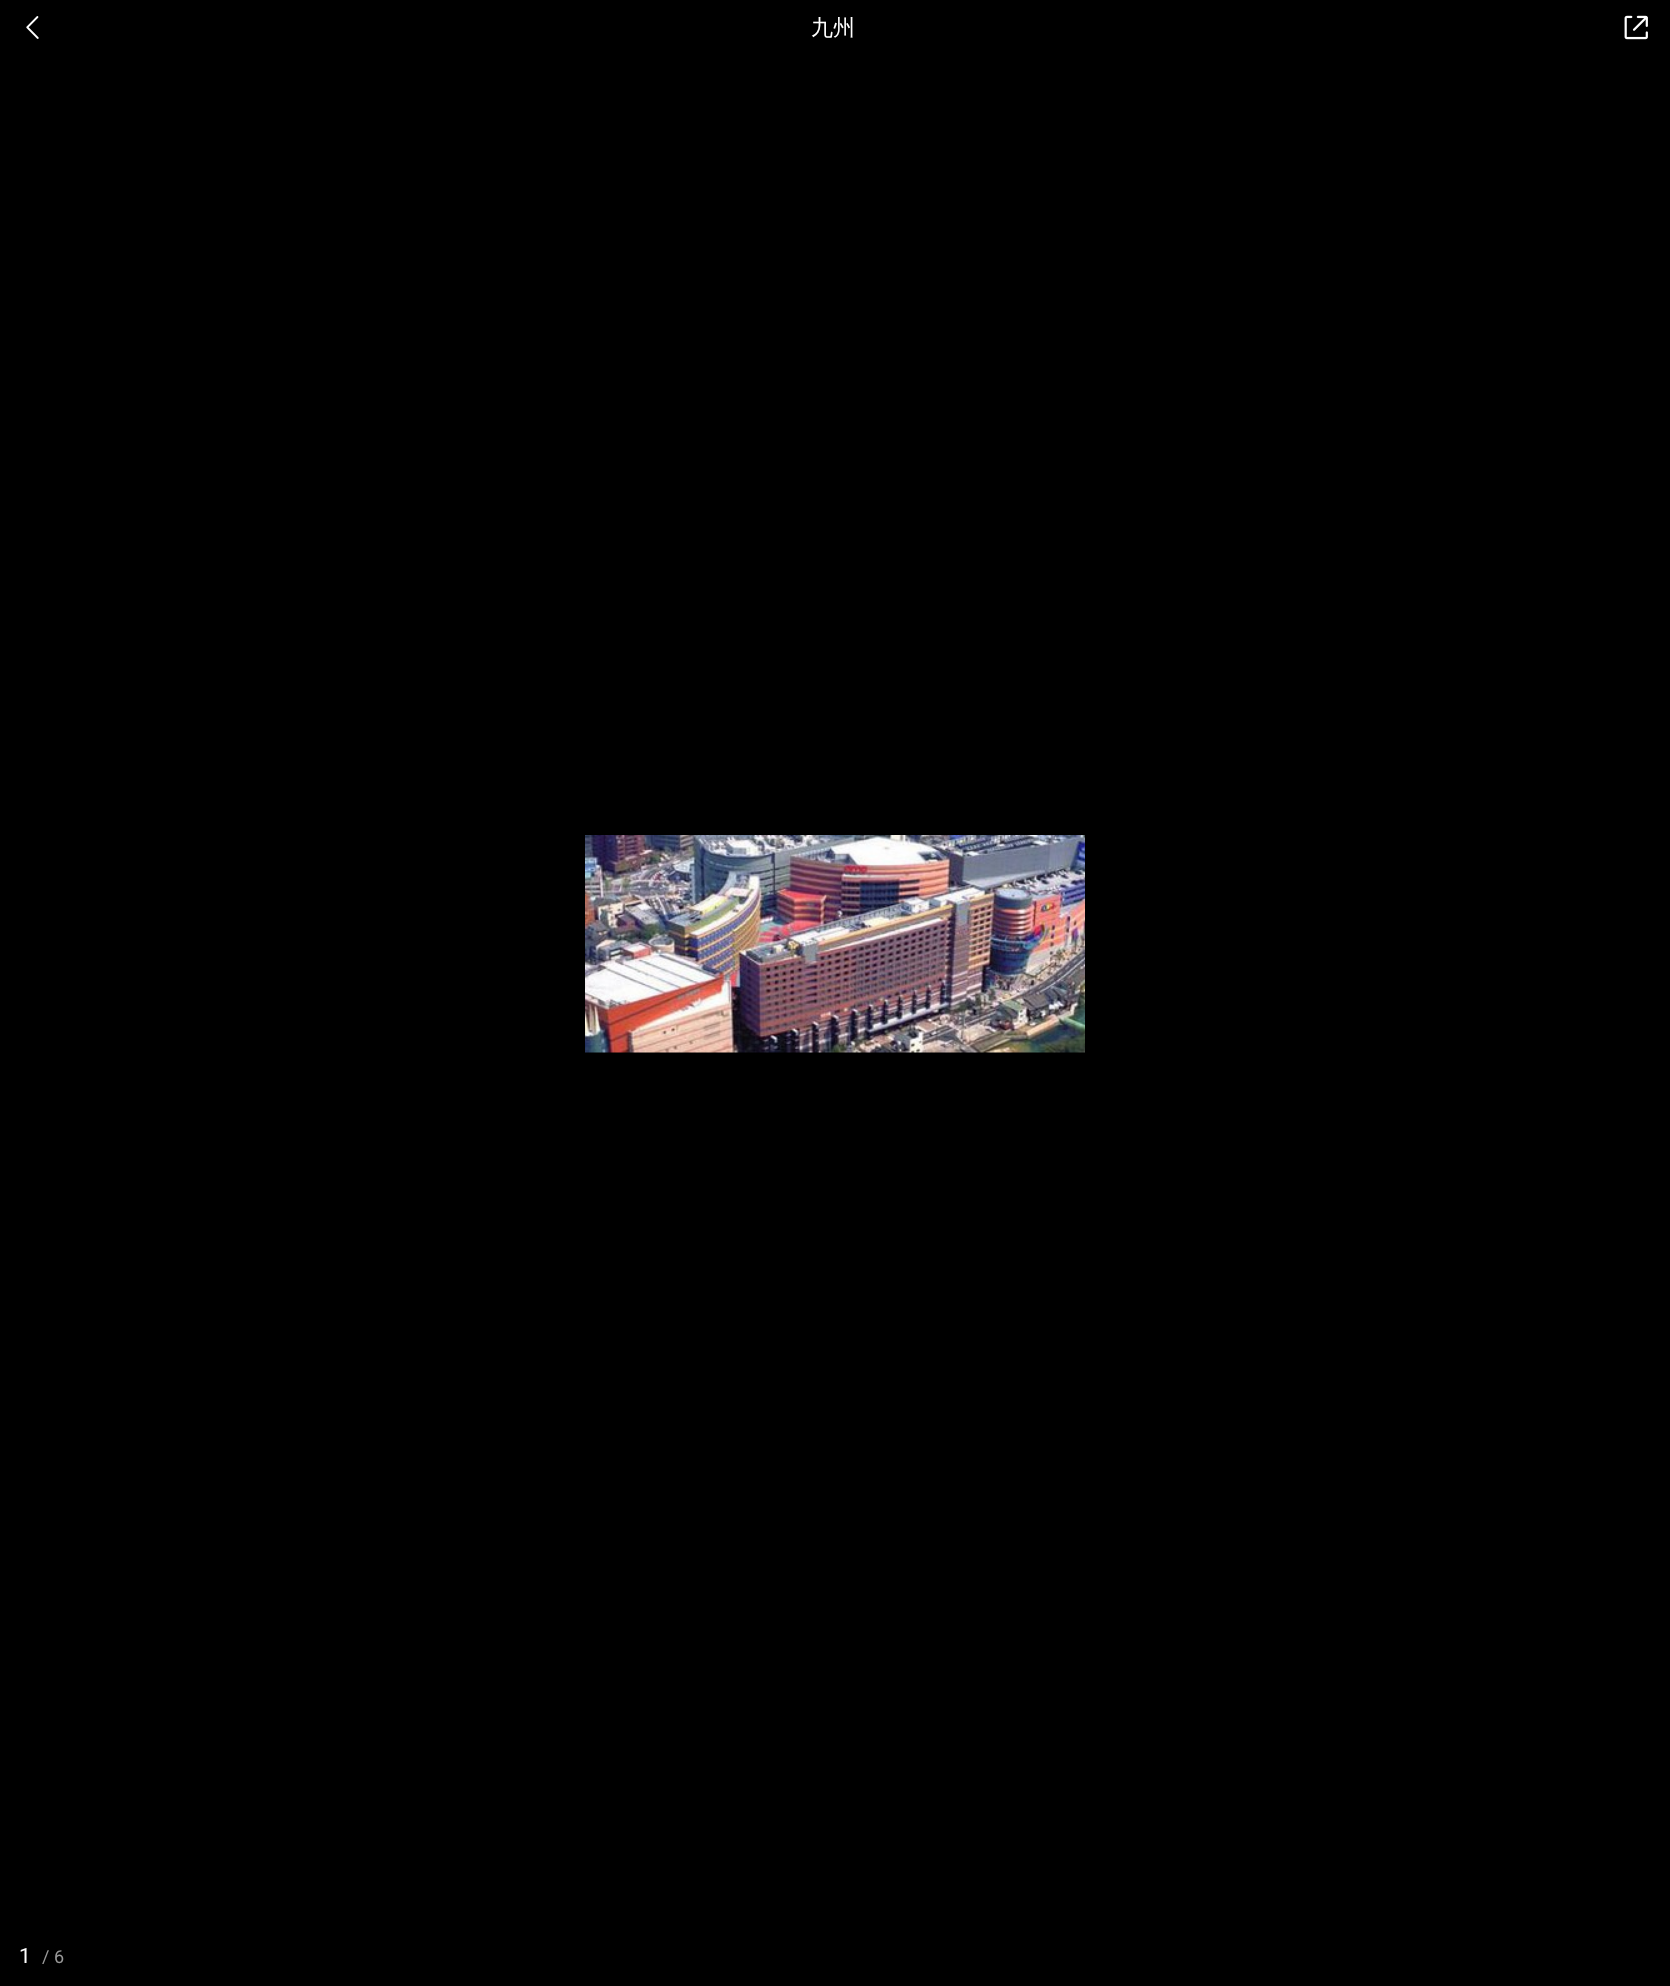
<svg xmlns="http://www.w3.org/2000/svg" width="1670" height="1986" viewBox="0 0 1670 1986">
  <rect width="100%" height="100%" fill="#000000"/>
  <image x="26" y="16" width="13" height="23" href="img1.png"/>
  <text x="811" y="35" font-family="WenQuanYi Zen Hei" font-size="22" font-weight="500" fill="#ffffff">九州</text>
  <image x="1624" y="15" width="24" height="25" href="img2.png"/>
  <image x="585" y="835" width="500" height="218" href="img3.png"/>
  <text x="19" y="1963" font-family="Roboto" font-size="21" fill="#ffffff">1</text>
  <text x="42" y="1963" font-family="Roboto" font-size="18" fill="#999999">/ 6</text>
</svg>
